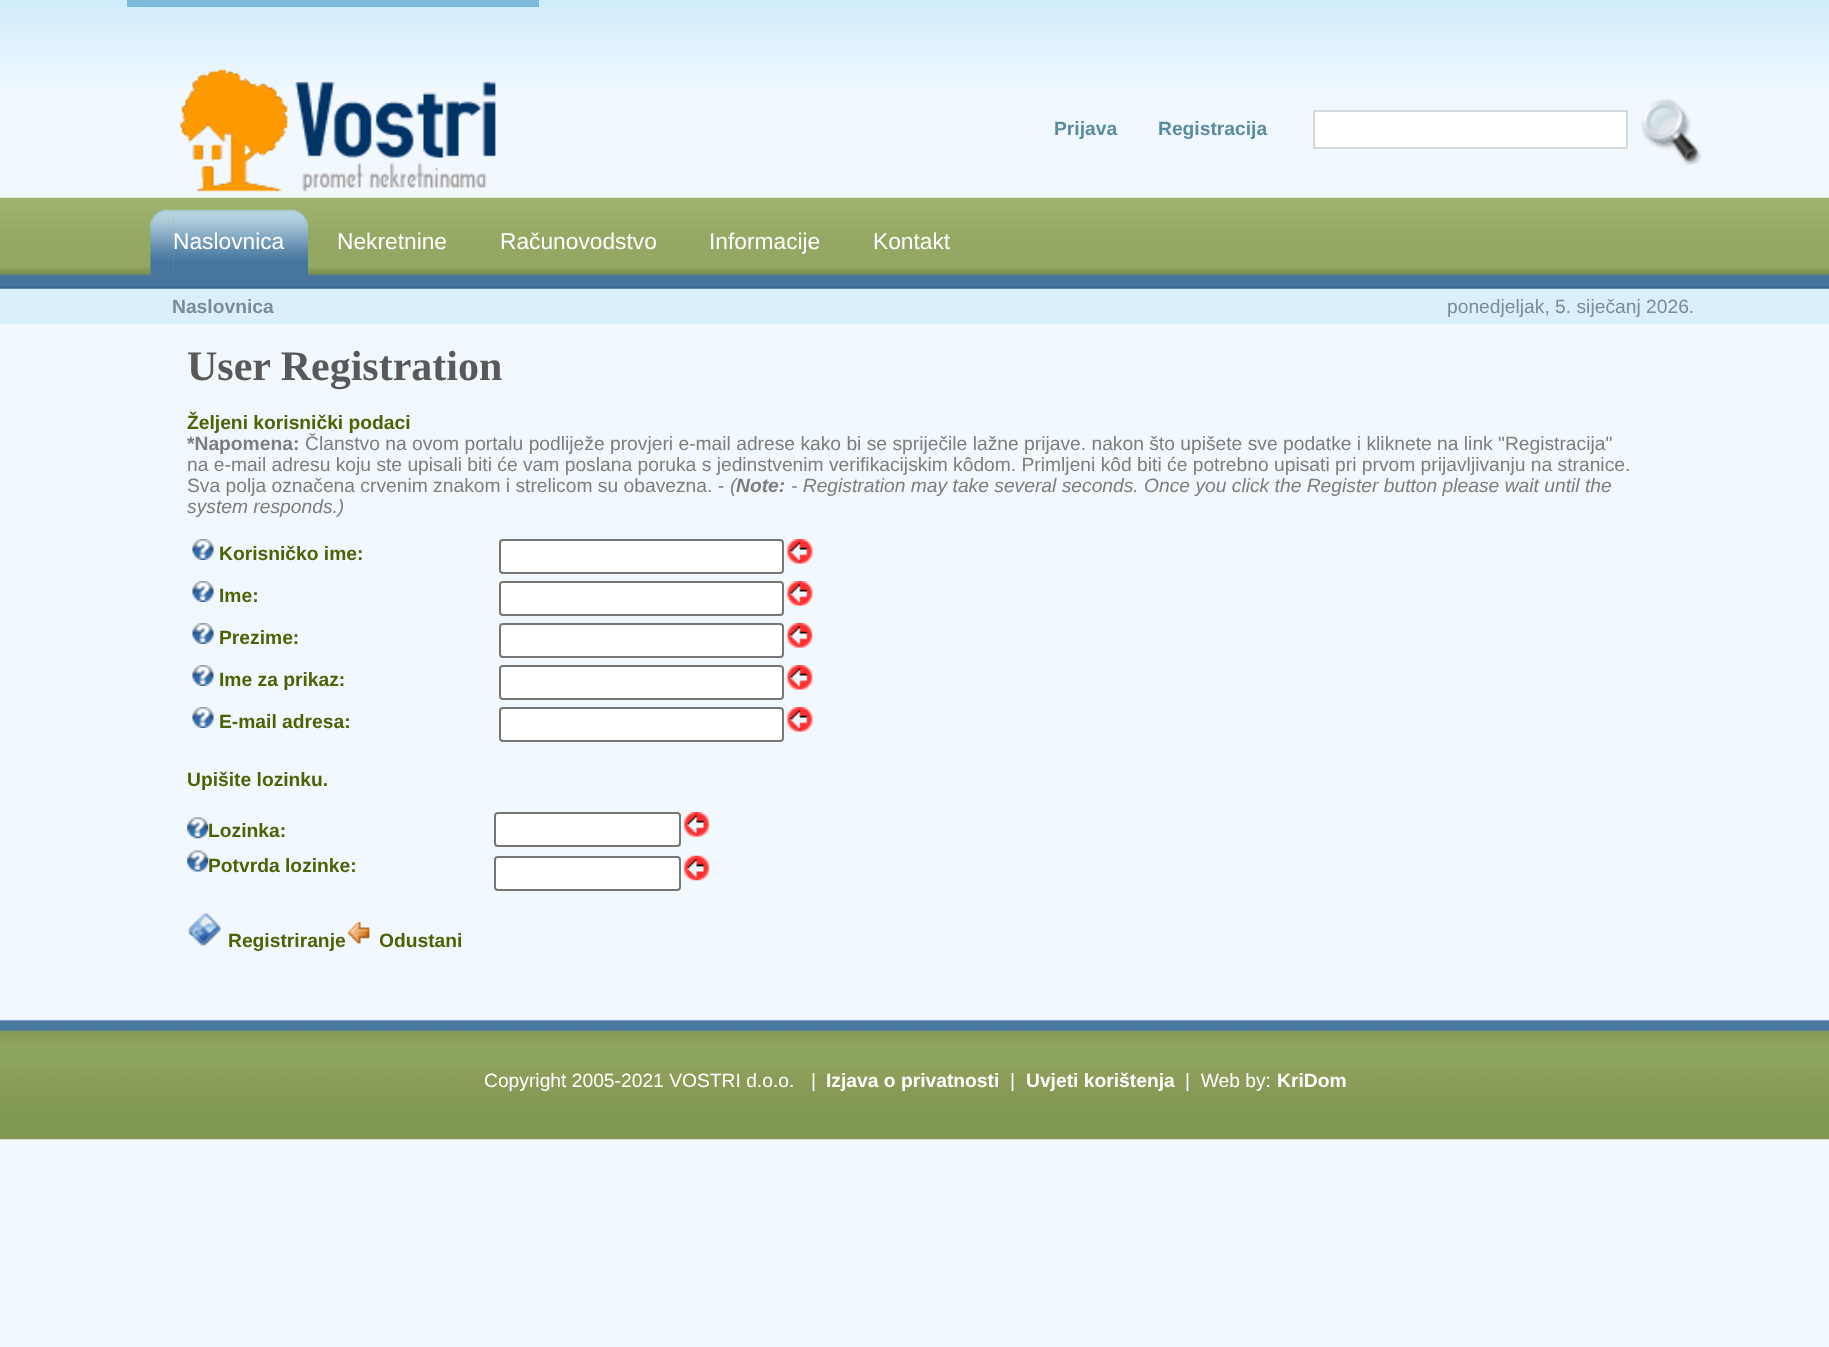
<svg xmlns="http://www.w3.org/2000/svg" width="1829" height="1347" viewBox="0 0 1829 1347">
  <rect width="100%" height="100%" fill="#f1f8fe"/>
  <image x="0" y="1019" width="1829" height="121" href="img1.png"/>
  <image x="0" y="0" width="1829" height="87" href="img2.png"/>
  <rect x="127" y="0" width="412" height="7" fill="#7ebbda"/>
  <image x="179" y="69" width="317" height="123" href="img3.png"/>
  <text x="1054" y="135" font-family="Liberation Sans" font-size="19.25" font-weight="bold" fill="#5a8ba1">Prijava</text>
  <text x="1158" y="135" font-family="Liberation Sans" font-size="19.25" font-weight="bold" fill="#5a8ba1">Registracija</text>
  <image x="1641" y="99" width="61" height="66" href="img4.png"/>
  <rect x="1314" y="111" width="313" height="37" fill="#ffffff" stroke="#d3dae2" stroke-width="2"/>
  <image x="0" y="197" width="1829" height="92" href="img5.png"/>
  <image x="150" y="209" width="24" height="67" href="img6.png"/>
  <image x="173" y="209" width="135" height="67" href="img7.png"/>
  <text x="173" y="249" font-family="Liberation Sans" font-size="22.75" fill="#ffffff">Naslovnica</text>
  <text x="337" y="249" font-family="Liberation Sans" font-size="22.75" fill="#ffffff">Nekretnine</text>
  <text x="500" y="249" font-family="Liberation Sans" font-size="22.75" fill="#ffffff">Računovodstvo</text>
  <text x="709" y="249" font-family="Liberation Sans" font-size="22.75" fill="#ffffff">Informacije</text>
  <text x="873" y="249" font-family="Liberation Sans" font-size="22.75" fill="#ffffff">Kontakt</text>
  <rect x="0" y="289" width="1829" height="35" fill="#d9effc"/>
  <text x="172" y="313" font-family="Liberation Sans" font-size="19.25" font-weight="bold" fill="#7c8c93">Naslovnica</text>
  <text x="1447" y="313" font-family="Liberation Sans" font-size="19.25" fill="#7c8c93">ponedjeljak, 5. siječanj 2026.</text>
  <text x="187" y="380" font-family="Liberation Serif" font-size="42" font-weight="bold" fill="#595959">User Registration</text>
  <text x="187" y="429" font-family="Liberation Sans" font-size="19.25" font-weight="bold" fill="#4c6203">Željeni korisnički podaci</text>
  <text x="187" y="450" font-family="Liberation Sans" font-size="19.25" font-weight="bold" fill="#7d7d7d">*Napomena:</text>
  <text x="305" y="450" font-family="Liberation Sans" font-size="19.25" fill="#7d7d7d">Članstvo na ovom portalu podliježe provjeri e-mail adrese kako bi se spriječile lažne prijave. nakon što upišete sve podatke i kliknete na link "Registracija"</text>
  <text x="187" y="471" font-family="Liberation Sans" font-size="19.25" fill="#7d7d7d">na e-mail adresu koju ste upisali biti će vam poslana poruka s jedinstvenim verifikacijskim kôdom. Primljeni kôd biti će potrebno upisati pri prvom prijavljivanju na stranice.</text>
  <text x="187" y="492" font-family="Liberation Sans" font-size="19.25" fill="#7d7d7d">Sva polja označena crvenim znakom i strelicom su obavezna. -</text>
  <text x="730" y="492" font-family="Liberation Sans" font-size="19.25" font-style="italic" fill="#7d7d7d">(</text>
  <text x="736" y="492" font-family="Liberation Sans" font-size="19.25" font-weight="bold" font-style="italic" fill="#7d7d7d">Note:</text>
  <text x="791" y="492" font-family="Liberation Sans" font-size="19.25" font-style="italic" fill="#7d7d7d">- Registration may take several seconds. Once you click the Register button please wait until the</text>
  <text x="187" y="513" font-family="Liberation Sans" font-size="19.25" font-style="italic" fill="#7d7d7d">system responds.)</text>
  <image x="192" y="539" width="22" height="21" href="img8.png"/>
  <text x="219" y="560" font-family="Liberation Sans" font-size="19.25" font-weight="bold" fill="#4c6203">Korisničko ime:</text>
  <rect x="500" y="540" width="283" height="33" rx="3" fill="#ffffff" stroke="#767676" stroke-width="2"/>
  <image x="787" y="539" width="26" height="25" href="img9.png"/>
  <image x="192" y="581" width="22" height="21" href="img8.png"/>
  <text x="219" y="602" font-family="Liberation Sans" font-size="19.25" font-weight="bold" fill="#4c6203">Ime:</text>
  <rect x="500" y="582" width="283" height="33" rx="3" fill="#ffffff" stroke="#767676" stroke-width="2"/>
  <image x="787" y="581" width="26" height="25" href="img9.png"/>
  <image x="192" y="623" width="22" height="21" href="img8.png"/>
  <text x="219" y="644" font-family="Liberation Sans" font-size="19.25" font-weight="bold" fill="#4c6203">Prezime:</text>
  <rect x="500" y="624" width="283" height="33" rx="3" fill="#ffffff" stroke="#767676" stroke-width="2"/>
  <image x="787" y="623" width="26" height="25" href="img9.png"/>
  <image x="192" y="665" width="22" height="21" href="img8.png"/>
  <text x="219" y="686" font-family="Liberation Sans" font-size="19.25" font-weight="bold" fill="#4c6203">Ime za prikaz:</text>
  <rect x="500" y="666" width="283" height="33" rx="3" fill="#ffffff" stroke="#767676" stroke-width="2"/>
  <image x="787" y="665" width="26" height="25" href="img9.png"/>
  <image x="192" y="707" width="22" height="21" href="img8.png"/>
  <text x="219" y="728" font-family="Liberation Sans" font-size="19.25" font-weight="bold" fill="#4c6203">E-mail adresa:</text>
  <rect x="500" y="708" width="283" height="33" rx="3" fill="#ffffff" stroke="#767676" stroke-width="2"/>
  <image x="787" y="707" width="26" height="25" href="img9.png"/>
  <text x="187" y="786" font-family="Liberation Sans" font-size="19.25" font-weight="bold" fill="#4c6203">Upišite lozinku.</text>
  <image x="187" y="817" width="22" height="22" href="img10.png"/>
  <text x="208" y="837" font-family="Liberation Sans" font-size="19.25" font-weight="bold" fill="#4c6203">Lozinka:</text>
  <rect x="495" y="813" width="185" height="33" rx="3" fill="#ffffff" stroke="#767676" stroke-width="2"/>
  <image x="683" y="812" width="27" height="25" href="img11.png"/>
  <image x="187" y="850" width="22" height="22" href="img12.png"/>
  <text x="208" y="872" font-family="Liberation Sans" font-size="19.25" font-weight="bold" fill="#4c6203">Potvrda lozinke:</text>
  <rect x="495" y="857" width="185" height="33" rx="3" fill="#ffffff" stroke="#767676" stroke-width="2"/>
  <image x="683" y="855" width="27" height="26" href="img13.png"/>
  <image x="187" y="912" width="35" height="35" href="img14.png"/>
  <text x="228" y="947" font-family="Liberation Sans" font-size="19.25" font-weight="bold" fill="#4c6203">Registriranje</text>
  <image x="347" y="921" width="23" height="23" href="img15.png"/>
  <text x="379" y="947" font-family="Liberation Sans" font-size="19.25" font-weight="bold" fill="#4c6203">Odustani</text>
  <text x="484" y="1087" font-family="Liberation Sans" font-size="19.25" fill="#ffffff">Copyright 2005-2021 VOSTRI d.o.o.</text>
  <text x="811" y="1087" font-family="Liberation Sans" font-size="19.25" fill="#ffffff">|</text>
  <text x="826" y="1087" font-family="Liberation Sans" font-size="19.25" font-weight="bold" fill="#ffffff">Izjava o privatnosti</text>
  <text x="1010" y="1087" font-family="Liberation Sans" font-size="19.25" fill="#ffffff">|</text>
  <text x="1026" y="1087" font-family="Liberation Sans" font-size="19.25" font-weight="bold" fill="#ffffff">Uvjeti korištenja</text>
  <text x="1185" y="1087" font-family="Liberation Sans" font-size="19.25" fill="#ffffff" xml:space="preserve">|  Web by:</text>
  <text x="1277" y="1087" font-family="Liberation Sans" font-size="19.25" font-weight="bold" fill="#ffffff">KriDom</text>
</svg>
